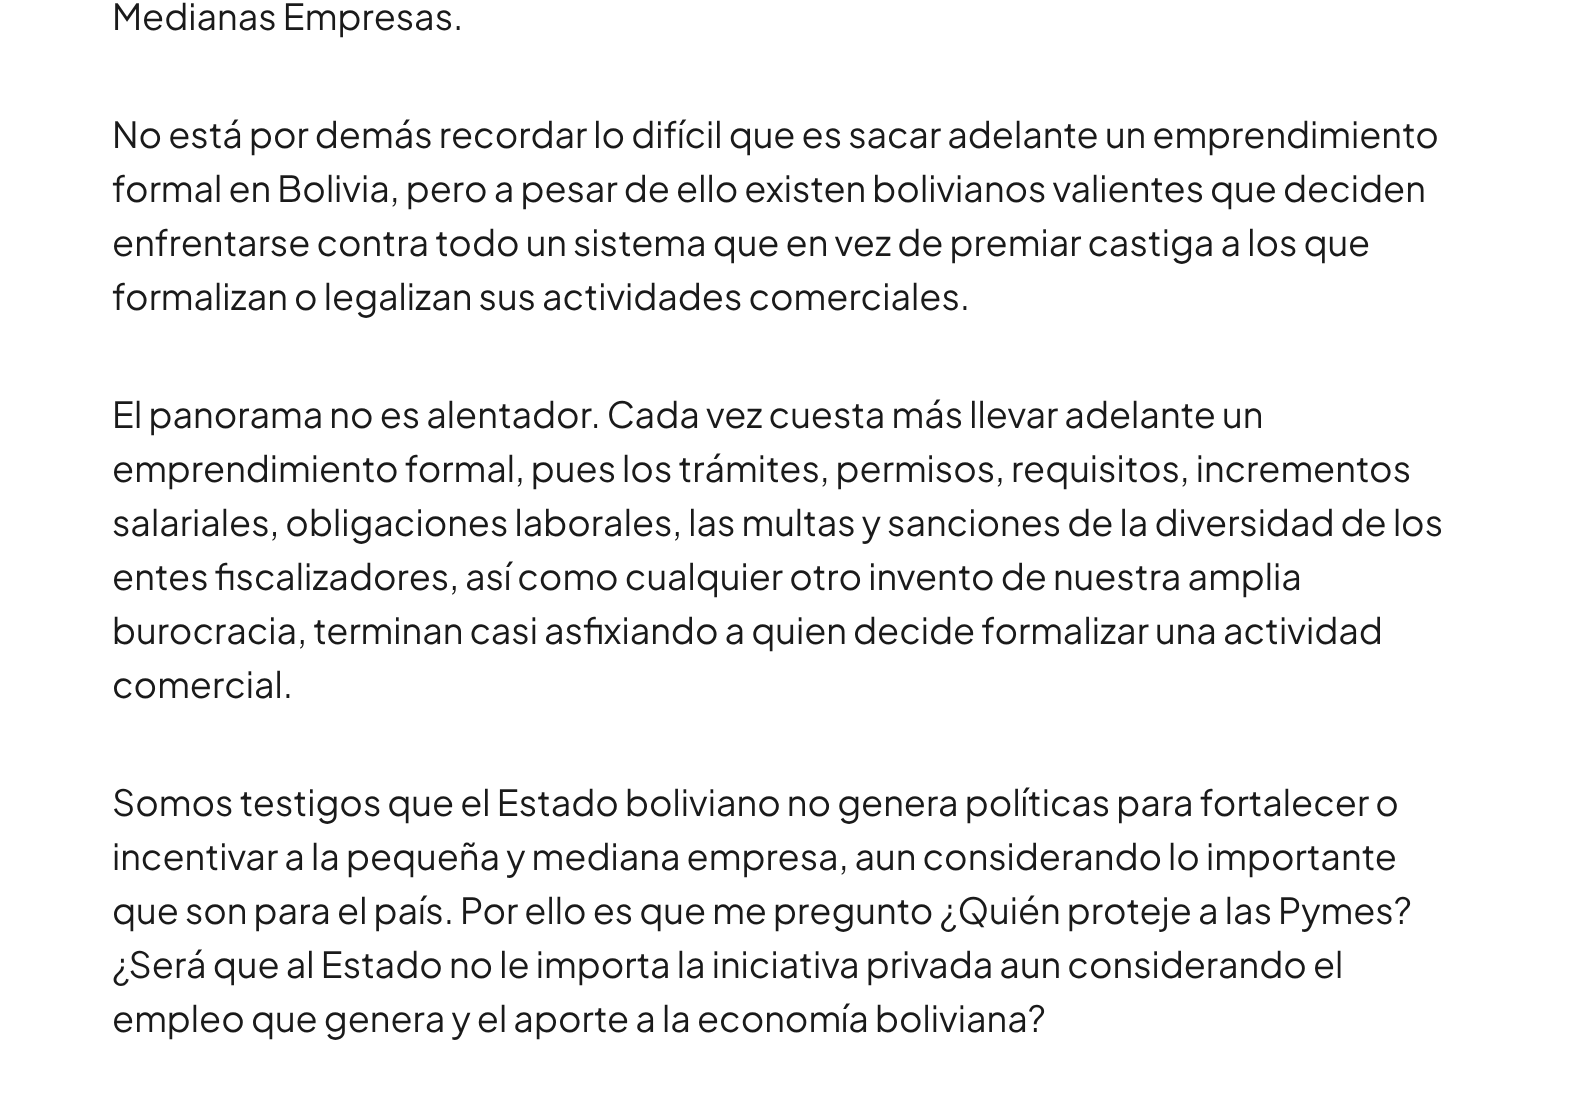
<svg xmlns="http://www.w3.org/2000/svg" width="1571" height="1109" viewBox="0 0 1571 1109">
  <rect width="100%" height="100%" fill="#ffffff"/>
  <text x="112" y="30" font-family="Plus Jakarta Sans" font-size="36" fill="#1a1a1a">Medianas Empresas.</text>
  <text x="112" y="148" font-family="Plus Jakarta Sans" font-size="36" fill="#1a1a1a">No está por demás recordar lo difícil que es sacar adelante un emprendimiento</text>
  <text x="112" y="202" font-family="Plus Jakarta Sans" font-size="36" fill="#1a1a1a">formal en Bolivia, pero a pesar de ello existen bolivianos valientes que deciden</text>
  <text x="112" y="256" font-family="Plus Jakarta Sans" font-size="36" fill="#1a1a1a">enfrentarse contra todo un sistema que en vez de premiar castiga a los que</text>
  <text x="112" y="310" font-family="Plus Jakarta Sans" font-size="36" fill="#1a1a1a">formalizan o legalizan sus actividades comerciales.</text>
  <text x="112" y="428" font-family="Plus Jakarta Sans" font-size="36" fill="#1a1a1a">El panorama no es alentador. Cada vez cuesta más llevar adelante un</text>
  <text x="112" y="482" font-family="Plus Jakarta Sans" font-size="36" fill="#1a1a1a">emprendimiento formal, pues los trámites, permisos, requisitos, incrementos</text>
  <text x="112" y="536" font-family="Plus Jakarta Sans" font-size="36" fill="#1a1a1a">salariales, obligaciones laborales, las multas y sanciones de la diversidad de los</text>
  <text x="112" y="590" font-family="Plus Jakarta Sans" font-size="36" fill="#1a1a1a">entes fiscalizadores, así como cualquier otro invento de nuestra amplia</text>
  <text x="112" y="644" font-family="Plus Jakarta Sans" font-size="36" fill="#1a1a1a">burocracia, terminan casi asfixiando a quien decide formalizar una actividad</text>
  <text x="112" y="698" font-family="Plus Jakarta Sans" font-size="36" fill="#1a1a1a">comercial.</text>
  <text x="112" y="816" font-family="Plus Jakarta Sans" font-size="36" fill="#1a1a1a">Somos testigos que el Estado boliviano no genera políticas para fortalecer o</text>
  <text x="112" y="870" font-family="Plus Jakarta Sans" font-size="36" fill="#1a1a1a">incentivar a la pequeña y mediana empresa, aun considerando lo importante</text>
  <text x="112" y="924" font-family="Plus Jakarta Sans" font-size="36" fill="#1a1a1a">que son para el país. Por ello es que me pregunto ¿Quién proteje a las Pymes?</text>
  <text x="112" y="978" font-family="Plus Jakarta Sans" font-size="36" fill="#1a1a1a">¿Será que al Estado no le importa la iniciativa privada aun considerando el</text>
  <text x="112" y="1032" font-family="Plus Jakarta Sans" font-size="36" fill="#1a1a1a">empleo que genera y el aporte a la economía boliviana?</text>
</svg>
